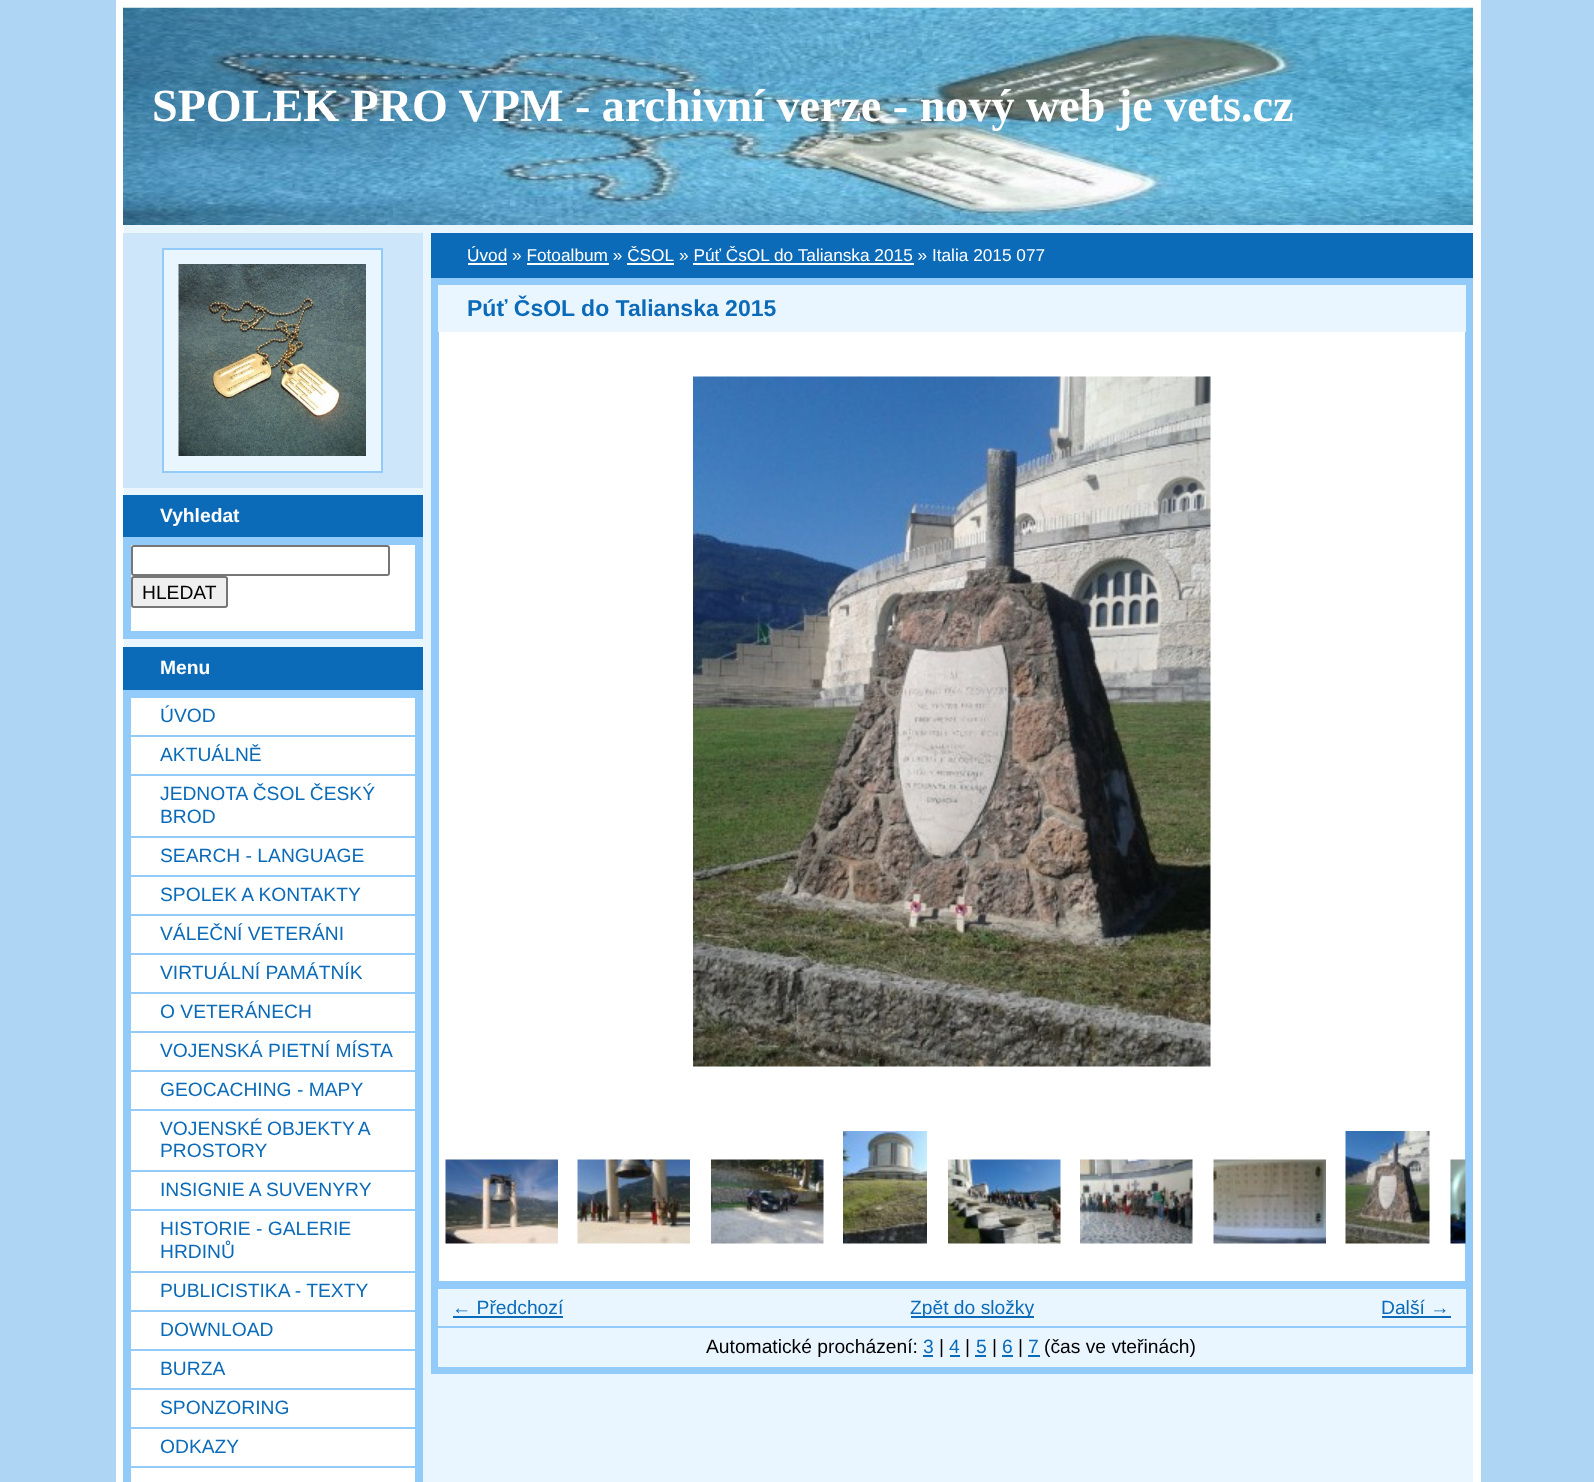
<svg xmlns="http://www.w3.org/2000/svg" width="1594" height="1482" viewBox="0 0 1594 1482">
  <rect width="100%" height="100%" fill="#afd5f4"/>
  <rect x="124" y="225" width="1349" height="1257" fill="#e9f5ff"/>
  <rect x="120" y="4" width="1357" height="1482" fill="none" stroke="#ffffff" stroke-width="8"/>
  <image x="123" y="7" width="1350" height="218" href="img1.png"/>
  <text x="152" y="121" font-family="Liberation Serif" font-size="46.1" font-weight="bold" fill="#ffffff">SPOLEK PRO VPM - archivní verze - nový web je vets.cz</text>
  <rect x="123" y="233" width="300" height="255" fill="#cee6fa"/>
  <rect x="163" y="249" width="219" height="223" fill="#e9f6ff" stroke="#92cbf9" stroke-width="2"/>
  <image x="178" y="264" width="188" height="192" href="img2.png"/>
  <rect x="123" y="495" width="300" height="42" fill="#0c6bb8"/>
  <text x="160" y="522" font-family="Liberation Sans" font-size="19.25" font-weight="bold" fill="#ffffff">Vyhledat</text>
  <rect x="127" y="541" width="292" height="94" fill="#ffffff" stroke="#92cbf9" stroke-width="8"/>
  <rect x="132" y="546" width="257" height="29" rx="2" fill="none" stroke="#767676" stroke-width="2"/>
  <rect x="132" y="577" width="95" height="30" rx="2" fill="#efefef" stroke="#767676" stroke-width="2"/>
  <text x="142" y="599" font-family="Liberation Sans" font-size="19.25" fill="#000000">HLEDAT</text>
  <rect x="123" y="647" width="300" height="43" fill="#0c6bb8"/>
  <text x="160" y="674" font-family="Liberation Sans" font-size="19.25" font-weight="bold" fill="#ffffff">Menu</text>
  <rect x="127" y="694" width="292" height="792" fill="#ffffff" stroke="#92cbf9" stroke-width="8"/>
  <rect x="131" y="735" width="285" height="2" fill="#92cbf9"/>
  <text x="160" y="722" font-family="Liberation Sans" font-size="19.25" fill="#0c6bb8">ÚVOD</text>
  <rect x="131" y="774" width="285" height="2" fill="#92cbf9"/>
  <text x="160" y="761" font-family="Liberation Sans" font-size="19.25" fill="#0c6bb8">AKTUÁLNĚ</text>
  <rect x="131" y="836" width="285" height="2" fill="#92cbf9"/>
  <text x="160" y="800" font-family="Liberation Sans" font-size="19.25" fill="#0c6bb8">JEDNOTA ČSOL ČESKÝ</text>
  <text x="160" y="823" font-family="Liberation Sans" font-size="19.25" fill="#0c6bb8">BROD</text>
  <rect x="131" y="875" width="285" height="2" fill="#92cbf9"/>
  <text x="160" y="862" font-family="Liberation Sans" font-size="19.25" fill="#0c6bb8">SEARCH - LANGUAGE</text>
  <rect x="131" y="914" width="285" height="2" fill="#92cbf9"/>
  <text x="160" y="901" font-family="Liberation Sans" font-size="19.25" fill="#0c6bb8">SPOLEK A KONTAKTY</text>
  <rect x="131" y="953" width="285" height="2" fill="#92cbf9"/>
  <text x="160" y="940" font-family="Liberation Sans" font-size="19.25" fill="#0c6bb8">VÁLEČNÍ VETERÁNI</text>
  <rect x="131" y="992" width="285" height="2" fill="#92cbf9"/>
  <text x="160" y="979" font-family="Liberation Sans" font-size="19.25" fill="#0c6bb8">VIRTUÁLNÍ PAMÁTNÍK</text>
  <rect x="131" y="1031" width="285" height="2" fill="#92cbf9"/>
  <text x="160" y="1018" font-family="Liberation Sans" font-size="19.25" fill="#0c6bb8">O VETERÁNECH</text>
  <rect x="131" y="1070" width="285" height="2" fill="#92cbf9"/>
  <text x="160" y="1057" font-family="Liberation Sans" font-size="19.25" fill="#0c6bb8">VOJENSKÁ PIETNÍ MÍSTA</text>
  <rect x="131" y="1109" width="285" height="2" fill="#92cbf9"/>
  <text x="160" y="1096" font-family="Liberation Sans" font-size="19.25" fill="#0c6bb8">GEOCACHING - MAPY</text>
  <rect x="131" y="1170" width="285" height="2" fill="#92cbf9"/>
  <text x="160" y="1135" word-spacing="-1" font-family="Liberation Sans" font-size="19.25" fill="#0c6bb8">VOJENSKÉ OBJEKTY A</text>
  <text x="160" y="1157" font-family="Liberation Sans" font-size="19.25" fill="#0c6bb8">PROSTORY</text>
  <rect x="131" y="1209" width="285" height="2" fill="#92cbf9"/>
  <text x="160" y="1196" font-family="Liberation Sans" font-size="19.25" fill="#0c6bb8">INSIGNIE A SUVENYRY</text>
  <rect x="131" y="1271" width="285" height="2" fill="#92cbf9"/>
  <text x="160" y="1235" font-family="Liberation Sans" font-size="19.25" fill="#0c6bb8">HISTORIE - GALERIE</text>
  <text x="160" y="1258" font-family="Liberation Sans" font-size="19.25" fill="#0c6bb8">HRDINŮ</text>
  <rect x="131" y="1310" width="285" height="2" fill="#92cbf9"/>
  <text x="160" y="1297" font-family="Liberation Sans" font-size="19.25" fill="#0c6bb8">PUBLICISTIKA - TEXTY</text>
  <rect x="131" y="1349" width="285" height="2" fill="#92cbf9"/>
  <text x="160" y="1336" font-family="Liberation Sans" font-size="19.25" fill="#0c6bb8">DOWNLOAD</text>
  <rect x="131" y="1388" width="285" height="2" fill="#92cbf9"/>
  <text x="160" y="1375" font-family="Liberation Sans" font-size="19.25" fill="#0c6bb8">BURZA</text>
  <rect x="131" y="1427" width="285" height="2" fill="#92cbf9"/>
  <text x="160" y="1414" font-family="Liberation Sans" font-size="19.25" fill="#0c6bb8">SPONZORING</text>
  <rect x="131" y="1466" width="285" height="2" fill="#92cbf9"/>
  <text x="160" y="1453" font-family="Liberation Sans" font-size="19.25" fill="#0c6bb8">ODKAZY</text>
  <rect x="431" y="233" width="1042" height="45" fill="#0c6bb8"/>
  <text x="467" y="261" font-family="Liberation Sans" font-size="17.25" fill="#ffffff">Úvod » Fotoalbum » ČSOL</text>
  <rect x="468" y="263" width="39" height="2" fill="#ffffff"/>
  <text x="679" y="261" font-family="Liberation Sans" font-size="17.25" fill="#ffffff">» Púť ČsOL do Talianska 2015 » Italia 2015 077</text>
  <rect x="527" y="263" width="82" height="2" fill="#ffffff"/>
  <rect x="627" y="263" width="47" height="2" fill="#ffffff"/>
  <rect x="693" y="263" width="221" height="2" fill="#ffffff"/>
  <rect x="439" y="332" width="1026" height="949" fill="#ffffff"/>
  <rect x="435" y="282" width="1034" height="1088" fill="none" stroke="#92cbf9" stroke-width="8"/>
  <rect x="438" y="285" width="1028" height="47" fill="#e9f6ff"/>
  <text x="467" y="316" font-family="Liberation Sans" font-size="23" font-weight="bold" fill="#0c6bb8">Púť ČsOL do Talianska 2015</text>
  <image x="693" y="376" width="518" height="691" href="img3.png"/>
  <image x="445" y="1159" width="113" height="85" href="img4.png"/>
  <image x="577" y="1159" width="113" height="85" href="img5.png"/>
  <image x="711" y="1159" width="113" height="85" href="img6.png"/>
  <image x="843" y="1131" width="84" height="113" href="img7.png"/>
  <image x="948" y="1159" width="113" height="85" href="img8.png"/>
  <image x="1080" y="1159" width="113" height="85" href="img9.png"/>
  <image x="1213" y="1159" width="113" height="85" href="img10.png"/>
  <image x="1345" y="1131" width="85" height="113" href="img11.png"/>
  <image x="1450" y="1159" width="16" height="85" href="img12.png"/>
  <rect x="438" y="1289" width="1028" height="37" fill="#e9f6ff"/>
  <rect x="438" y="1281" width="1028" height="8" fill="#92cbf9"/>
  <text x="452" y="1314" font-family="Liberation Sans" font-size="19.25" fill="#0c6bb8">← Předchozí</text>
  <rect x="453" y="1316" width="110" height="2" fill="#0c6bb8"/>
  <rect x="911" y="1316" width="123" height="2" fill="#0c6bb8"/>
  <text x="910" y="1314" font-family="Liberation Sans" font-size="19.25" fill="#0c6bb8">Zpět do složky</text>
  <text x="1381" y="1314" font-family="Liberation Sans" font-size="19.25" fill="#0c6bb8">Další →</text>
  <rect x="1382" y="1316" width="69" height="2" fill="#0c6bb8"/>
  <rect x="438" y="1328" width="1028" height="39" fill="#e9f6ff"/>
  <rect x="438" y="1326" width="1028" height="2" fill="#92cbf9"/>
  <text x="706" y="1353" font-family="Liberation Sans" font-size="19.25" fill="#000000">Automatické procházení:</text>
  <text x="923" y="1353" font-family="Liberation Sans" font-size="19.25" fill="#0c6bb8">3</text>
  <rect x="923" y="1355" width="10" height="2" fill="#0c6bb8"/>
  <text x="939" y="1353" font-family="Liberation Sans" font-size="19.25" fill="#000000">|</text>
  <text x="949" y="1353" font-family="Liberation Sans" font-size="19.25" fill="#0c6bb8">4</text>
  <rect x="950" y="1355" width="10" height="2" fill="#0c6bb8"/>
  <text x="965" y="1353" font-family="Liberation Sans" font-size="19.25" fill="#000000">|</text>
  <text x="976" y="1353" font-family="Liberation Sans" font-size="19.25" fill="#0c6bb8">5</text>
  <rect x="975" y="1355" width="11" height="2" fill="#0c6bb8"/>
  <text x="992" y="1353" font-family="Liberation Sans" font-size="19.25" fill="#000000">|</text>
  <text x="1002" y="1353" font-family="Liberation Sans" font-size="19.25" fill="#0c6bb8">6</text>
  <rect x="1002" y="1355" width="11" height="2" fill="#0c6bb8"/>
  <text x="1018" y="1353" font-family="Liberation Sans" font-size="19.25" fill="#000000">|</text>
  <text x="1028" y="1353" font-family="Liberation Sans" font-size="19.25" fill="#0c6bb8">7</text>
  <rect x="1028" y="1355" width="12" height="2" fill="#0c6bb8"/>
  <text x="1044" y="1353" font-family="Liberation Sans" font-size="19.25" fill="#000000">(čas ve vteřinách)</text>
</svg>
